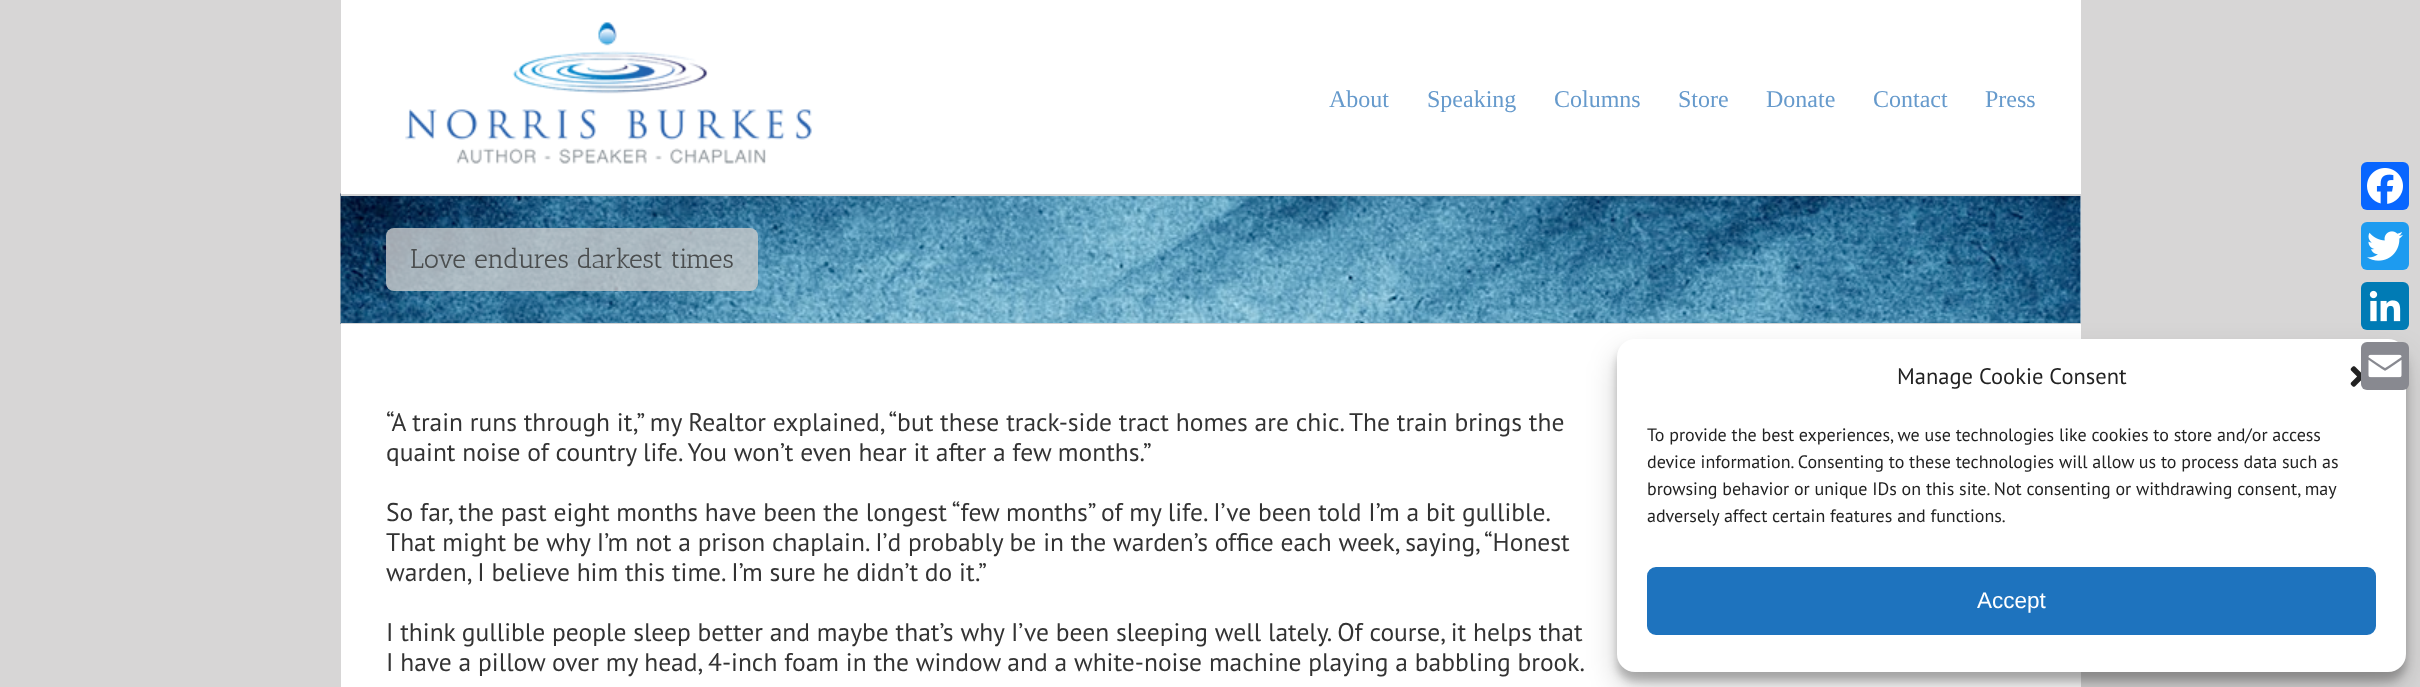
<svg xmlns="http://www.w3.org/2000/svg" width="2420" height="687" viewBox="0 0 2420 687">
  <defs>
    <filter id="blur1" x="-50%" y="-200%" width="200%" height="500%"><feGaussianBlur stdDeviation="15"/></filter>
    <filter id="blur2" x="-50%" y="-200%" width="200%" height="500%"><feGaussianBlur stdDeviation="4.5"/></filter>
  </defs>
  <rect width="100%" height="100%" fill="#d7d6d6"/>
  <rect x="2080" y="196" width="1" height="127" fill="#f6f6f6"/>
  <image x="340" y="193" width="1741" height="131" href="img2.png"/>
  <rect x="341" y="0" width="1740" height="194" fill="#ffffff"/>
  <image x="405" y="22" width="407" height="142" href="img1.png"/>
  <text x="1329" y="107" font-family="Liberation Serif" font-size="24" fill="#669acc">About</text>
  <text x="1427" y="107" font-family="Liberation Serif" font-size="24" fill="#669acc">Speaking</text>
  <text x="1554" y="107" font-family="Liberation Serif" font-size="24" fill="#669acc">Columns</text>
  <text x="1678" y="107" font-family="Liberation Serif" font-size="24" fill="#669acc">Store</text>
  <text x="1766" y="107" font-family="Liberation Serif" font-size="24" fill="#669acc">Donate</text>
  <text x="1873" y="107" font-family="Liberation Serif" font-size="24" fill="#669acc">Contact</text>
  <text x="1985" y="107" font-family="Liberation Serif" font-size="24" fill="#669acc">Press</text>
  <rect x="341" y="194" width="1740" height="2" fill="#d2d3d4"/>
  <rect x="341" y="323" width="1740" height="1" fill="#d2d3d4"/>
  <rect x="386" y="228" width="372" height="63" rx="8" fill="#cccccc" fill-opacity="0.8"/>
  <text x="410" y="268" font-family="Antic Slab" font-size="27" fill="#4b4e4f">Love endures darkest times</text>
  <rect x="341" y="324" width="1740" height="363" fill="#ffffff"/>
  <text x="386" y="431" font-family="PT Sans" font-size="25.5" fill="#333333">“A train runs through it,” my Realtor explained, “but these track-side tract homes are chic. The train brings the</text>
  <text x="386" y="461" font-family="PT Sans" font-size="25.5" fill="#333333">quaint noise of country life. You won’t even hear it after a few months.”</text>
  <text x="386" y="521" font-family="PT Sans" font-size="25.5" fill="#333333">So far, the past eight months have been the longest “few months” of my life. I’ve been told I’m a bit gullible.</text>
  <text x="386" y="551" font-family="PT Sans" font-size="25.5" fill="#333333">That might be why I’m not a prison chaplain. I’d probably be in the warden’s office each week, saying, “Honest</text>
  <text x="386" y="581" font-family="PT Sans" font-size="25.5" fill="#333333">warden, I believe him this time. I’m sure he didn’t do it.”</text>
  <text x="386" y="641" font-family="PT Sans" font-size="25.5" fill="#333333">I think gullible people sleep better and maybe that’s why I’ve been sleeping well lately. Of course, it helps that</text>
  <text x="386" y="671" font-family="PT Sans" font-size="25.5" fill="#333333">I have a pillow over my head, 4-inch foam in the window and a white-noise machine playing a babbling brook.</text>
  <rect x="2361" y="162" width="48" height="48" rx="6" fill="#0866ff"/>
  <image x="2367" y="168" width="36" height="36" href="img3.png"/>
  <rect x="2361" y="222" width="48" height="48" rx="6" fill="#1d9bf0"/>
  <image x="2367" y="231" width="36" height="30" href="img4.png"/>
  <rect x="1617" y="354" width="789" height="333" rx="18" fill="#000000" fill-opacity="0.19" filter="url(#blur1)"/>
  <rect x="2361" y="282" width="48" height="48" rx="6" fill="#007bb5"/>
  <image x="2369" y="290" width="32" height="32" href="img5.png"/>
  <rect x="1617" y="348" width="789" height="333" rx="18" fill="#000000" fill-opacity="0.23" filter="url(#blur2)"/>
  <rect x="1617" y="339" width="789" height="333" rx="18" fill="#ffffff"/>
  <rect x="2361" y="342" width="48" height="48" rx="6" fill="#888990"/>
  <image x="2368" y="354" width="34" height="24" href="img6.png"/>
  <text x="1897" y="384" font-family="PT Sans" font-size="22.5" fill="#222222">Manage Cookie Consent</text>
  <image x="2350" y="366" width="11" height="21" href="img7.png"/>
  <text x="1647" y="441" font-family="PT Sans" font-size="18" fill="#222222">To provide the best experiences, we use technologies like cookies to store and/or access</text>
  <text x="1647" y="468" font-family="PT Sans" font-size="18" fill="#222222">device information. Consenting to these technologies will allow us to process data such as</text>
  <text x="1647" y="495" font-family="PT Sans" font-size="18" fill="#222222">browsing behavior or unique IDs on this site. Not consenting or withdrawing consent, may</text>
  <text x="1647" y="522" font-family="PT Sans" font-size="18" fill="#222222">adversely affect certain features and functions.</text>
  <rect x="1648" y="568" width="727" height="66" rx="8" fill="#1e73be" stroke="#1e73be" stroke-width="2"/>
  <text x="1977" y="608" font-family="Liberation Sans" font-size="22.5" fill="#ffffff">Accept</text>
</svg>
